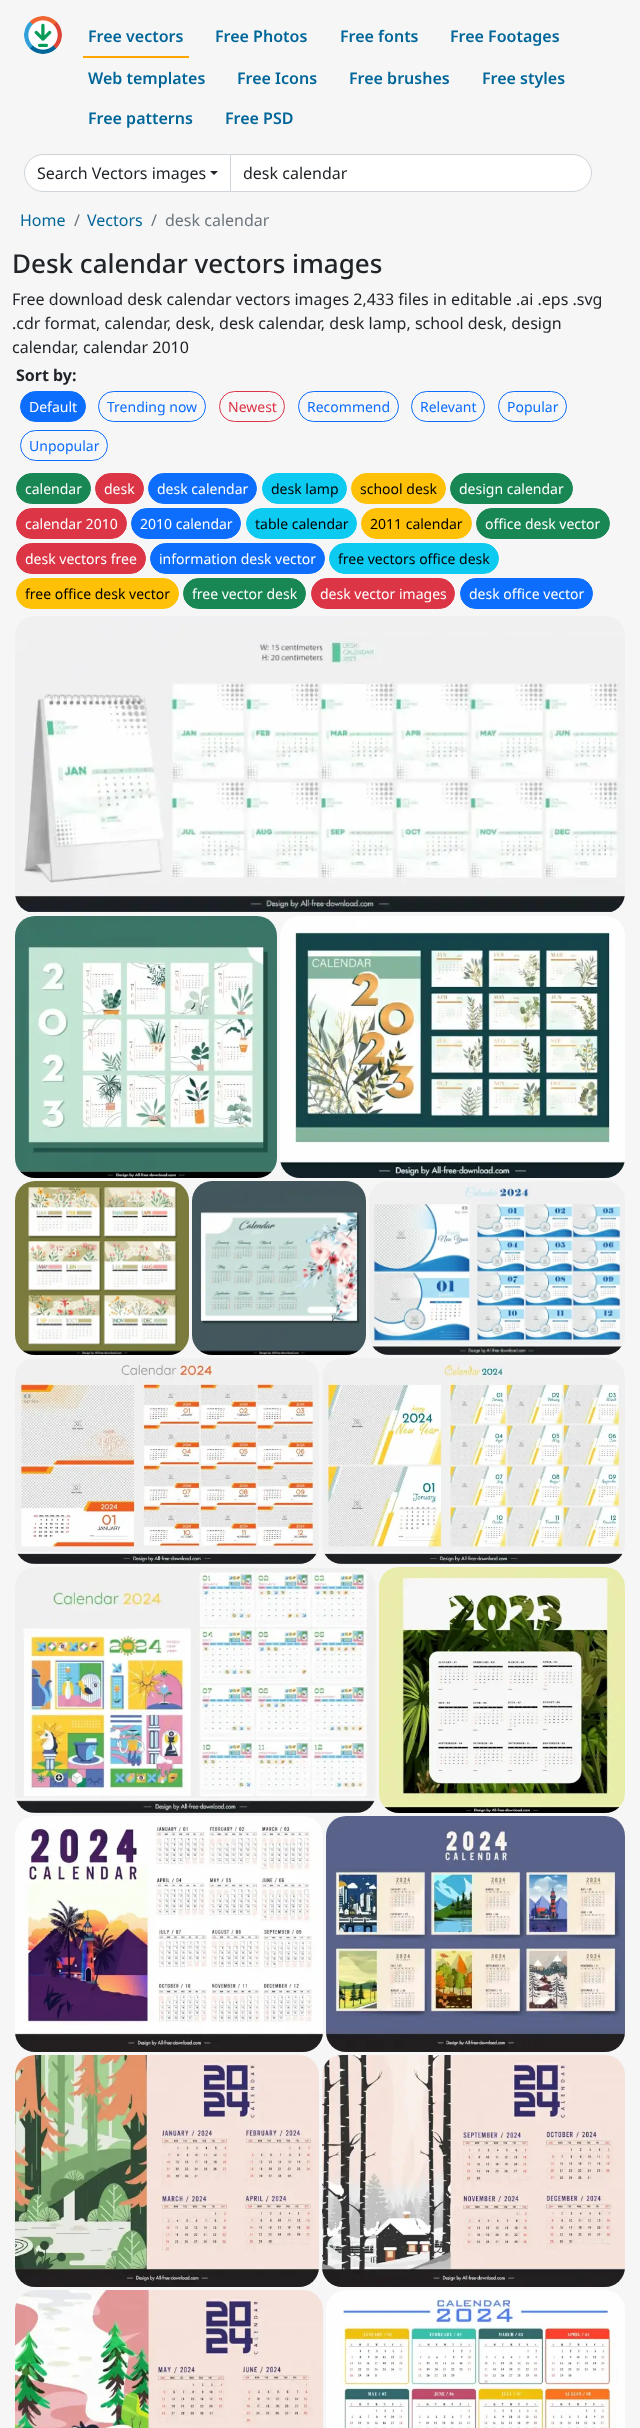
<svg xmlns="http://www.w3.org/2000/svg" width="640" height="2428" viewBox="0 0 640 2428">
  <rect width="100%" height="100%" fill="#f6f6f6"/>
  <image x="24" y="16" width="38" height="38" href="img1.png"/>
  <rect x="83" y="56" width="106" height="2" fill="#ffa500"/>
  <text x="88" y="42" font-family="Noto Sans" font-size="16" font-weight="600" fill="#006699">Free vectors</text>
  <text x="215" y="42" font-family="Noto Sans" font-size="16" font-weight="600" fill="#006699">Free Photos</text>
  <text x="340" y="42" font-family="Noto Sans" font-size="16" font-weight="600" fill="#006699">Free fonts</text>
  <text x="450" y="42" font-family="Noto Sans" font-size="16" font-weight="600" fill="#006699">Free Footages</text>
  <text x="88" y="84" font-family="Noto Sans" font-size="16" font-weight="600" fill="#006699">Web templates</text>
  <text x="237" y="84" font-family="Noto Sans" font-size="16" font-weight="600" fill="#006699">Free Icons</text>
  <text x="349" y="84" font-family="Noto Sans" font-size="16" font-weight="600" fill="#006699">Free brushes</text>
  <text x="482" y="84" font-family="Noto Sans" font-size="16" font-weight="600" fill="#006699">Free styles</text>
  <text x="88" y="124" font-family="Noto Sans" font-size="16" font-weight="600" fill="#006699">Free patterns</text>
  <text x="225" y="124" font-family="Noto Sans" font-size="16" font-weight="600" fill="#006699">Free PSD</text>
  <path d="M43 154.5H230.5V191.5H43C33 191.5 24.5 183 24.5 173C24.5 163 33 154.5 43 154.5Z" fill="#ffffff" stroke="#ced4da"/>
  <text x="37" y="179" font-family="Noto Sans" font-size="16" fill="#212529">Search Vectors images</text>
  <path d="M210 171H218L214 175Z" fill="#212529"/>
  <path d="M230.5 154.5H573C583 154.5 591.5 163 591.5 173C591.5 183 583 191.5 573 191.5H230.5Z" fill="#ffffff" stroke="#ced4da"/>
  <text x="243" y="179" font-family="Noto Sans" font-size="16" fill="#212529">desk calendar</text>
  <text x="20" y="226" font-family="Noto Sans" font-size="16" fill="#006699">Home</text>
  <text x="74" y="226" font-family="Noto Sans" font-size="16" fill="#6c757d">/</text>
  <text x="87" y="226" font-family="Noto Sans" font-size="16" fill="#006699">Vectors</text>
  <text x="151" y="226" font-family="Noto Sans" font-size="16" fill="#6c757d">/</text>
  <text x="165" y="226" font-family="Noto Sans" font-size="16" fill="#6c757d">desk calendar</text>
  <text x="12" y="273" font-family="Noto Sans" font-size="26" font-weight="500" fill="#212529">Desk calendar vectors images</text>
  <text x="12" y="305" font-family="Noto Sans" font-size="16" fill="#212529">Free download desk calendar vectors images 2,433 files in editable .ai .eps .svg</text>
  <text x="12" y="329" font-family="Noto Sans" font-size="16" fill="#212529">.cdr format, calendar, desk, desk calendar, desk lamp, school desk, design</text>
  <text x="12" y="353" font-family="Noto Sans" font-size="16" fill="#212529">calendar, calendar 2010</text>
  <text x="16" y="381" font-family="Noto Sans" font-size="16" font-weight="bold" fill="#212529">Sort by:</text>
  <rect x="20.5" y="391.5" width="65" height="30" rx="15" fill="#0d6efd" stroke="#0d6efd"/>
  <text x="29" y="412" font-family="Noto Sans" font-size="14" fill="#ffffff">Default</text>
  <rect x="98.5" y="391.5" width="107" height="30" rx="15" fill="none" stroke="#0d6efd"/>
  <text x="107" y="412" font-family="Noto Sans" font-size="14" fill="#0d6efd">Trending now</text>
  <rect x="219.5" y="391.5" width="65" height="30" rx="15" fill="none" stroke="#dc3545"/>
  <text x="228" y="412" font-family="Noto Sans" font-size="14" fill="#dc3545">Newest</text>
  <rect x="298.5" y="391.5" width="100" height="30" rx="15" fill="none" stroke="#0d6efd"/>
  <text x="307" y="412" font-family="Noto Sans" font-size="14" fill="#0d6efd">Recommend</text>
  <rect x="411.5" y="391.5" width="73" height="30" rx="15" fill="none" stroke="#0d6efd"/>
  <text x="420" y="412" font-family="Noto Sans" font-size="14" fill="#0d6efd">Relevant</text>
  <rect x="498.5" y="391.5" width="68" height="30" rx="15" fill="none" stroke="#0d6efd"/>
  <text x="507" y="412" font-family="Noto Sans" font-size="14" fill="#0d6efd">Popular</text>
  <rect x="20.5" y="430.5" width="87" height="30" rx="15" fill="none" stroke="#0d6efd"/>
  <text x="29" y="451" font-family="Noto Sans" font-size="14" fill="#0d6efd">Unpopular</text>
  <rect x="16.5" y="473.5" width="74" height="30" rx="15" fill="#198754" stroke="#198754"/>
  <text x="25" y="494" font-family="Noto Sans" font-size="14" fill="#ffffff">calendar</text>
  <rect x="95.5" y="473.5" width="48" height="30" rx="15" fill="#dc3545" stroke="#dc3545"/>
  <text x="104" y="494" font-family="Noto Sans" font-size="14" fill="#ffffff">desk</text>
  <rect x="148.5" y="473.5" width="108" height="30" rx="15" fill="#0d6efd" stroke="#0d6efd"/>
  <text x="157" y="494" font-family="Noto Sans" font-size="14" fill="#ffffff">desk calendar</text>
  <rect x="262.5" y="473.5" width="84" height="30" rx="15" fill="#0dcaf0" stroke="#0dcaf0"/>
  <text x="271" y="494" font-family="Noto Sans" font-size="14" fill="#000000">desk lamp</text>
  <rect x="351.5" y="473.5" width="94" height="30" rx="15" fill="#ffc107" stroke="#ffc107"/>
  <text x="360" y="494" font-family="Noto Sans" font-size="14" fill="#000000">school desk</text>
  <rect x="450.5" y="473.5" width="122" height="30" rx="15" fill="#198754" stroke="#198754"/>
  <text x="459" y="494" font-family="Noto Sans" font-size="14" fill="#ffffff">design calendar</text>
  <rect x="16.5" y="508.5" width="110" height="30" rx="15" fill="#dc3545" stroke="#dc3545"/>
  <text x="25" y="529" font-family="Noto Sans" font-size="14" fill="#ffffff">calendar 2010</text>
  <rect x="131.5" y="508.5" width="109" height="30" rx="15" fill="#0d6efd" stroke="#0d6efd"/>
  <text x="140" y="529" font-family="Noto Sans" font-size="14" fill="#ffffff">2010 calendar</text>
  <rect x="246.5" y="508.5" width="110" height="30" rx="15" fill="#0dcaf0" stroke="#0dcaf0"/>
  <text x="255" y="529" font-family="Noto Sans" font-size="14" fill="#000000">table calendar</text>
  <rect x="361.5" y="508.5" width="110" height="30" rx="15" fill="#ffc107" stroke="#ffc107"/>
  <text x="370" y="529" font-family="Noto Sans" font-size="14" fill="#000000">2011 calendar</text>
  <rect x="476.5" y="508.5" width="133" height="30" rx="15" fill="#198754" stroke="#198754"/>
  <text x="485" y="529" font-family="Noto Sans" font-size="14" fill="#ffffff">office desk vector</text>
  <rect x="16.5" y="543.5" width="129" height="30" rx="15" fill="#dc3545" stroke="#dc3545"/>
  <text x="25" y="564" font-family="Noto Sans" font-size="14" fill="#ffffff">desk vectors free</text>
  <rect x="150.5" y="543.5" width="174" height="30" rx="15" fill="#0d6efd" stroke="#0d6efd"/>
  <text x="159" y="564" font-family="Noto Sans" font-size="14" fill="#ffffff">information desk vector</text>
  <rect x="329.5" y="543.5" width="169" height="30" rx="15" fill="#0dcaf0" stroke="#0dcaf0"/>
  <text x="338" y="564" font-family="Noto Sans" font-size="14" fill="#000000">free vectors office desk</text>
  <rect x="16.5" y="578.5" width="162" height="30" rx="15" fill="#ffc107" stroke="#ffc107"/>
  <text x="25" y="599" font-family="Noto Sans" font-size="14" fill="#000000">free office desk vector</text>
  <rect x="183.5" y="578.5" width="122" height="30" rx="15" fill="#198754" stroke="#198754"/>
  <text x="192" y="599" font-family="Noto Sans" font-size="14" fill="#ffffff">free vector desk</text>
  <rect x="311.5" y="578.5" width="143" height="30" rx="15" fill="#dc3545" stroke="#dc3545"/>
  <text x="320" y="599" font-family="Noto Sans" font-size="14" fill="#ffffff">desk vector images</text>
  <rect x="460.5" y="578.5" width="132" height="30" rx="15" fill="#0d6efd" stroke="#0d6efd"/>
  <text x="469" y="599" font-family="Noto Sans" font-size="14" fill="#ffffff">desk office vector</text>
  <image x="15" y="616" width="610" height="296" href="img2.png"/>
  <image x="15" y="916" width="262" height="262" href="img3.png"/>
  <image x="280" y="916" width="345" height="262" href="img4.png"/>
  <image x="15" y="1181" width="174" height="174" href="img5.png"/>
  <image x="192" y="1181" width="174" height="174" href="img6.png"/>
  <image x="369" y="1181" width="256" height="174" href="img7.png"/>
  <image x="15" y="1358" width="304" height="206" href="img8.png"/>
  <image x="322" y="1358" width="303" height="206" href="img9.png"/>
  <image x="15" y="1567" width="361" height="246" href="img10.png"/>
  <image x="379" y="1567" width="246" height="246" href="img11.png"/>
  <image x="15" y="1816" width="308" height="236" href="img12.png"/>
  <image x="326" y="1816" width="299" height="236" href="img13.png"/>
  <image x="15" y="2055" width="304" height="232" href="img14.png"/>
  <image x="322" y="2055" width="303" height="232" href="img15.png"/>
  <image x="15" y="2290" width="308" height="138" href="img16.png"/>
  <image x="326" y="2290" width="299" height="138" href="img17.png"/>
</svg>
